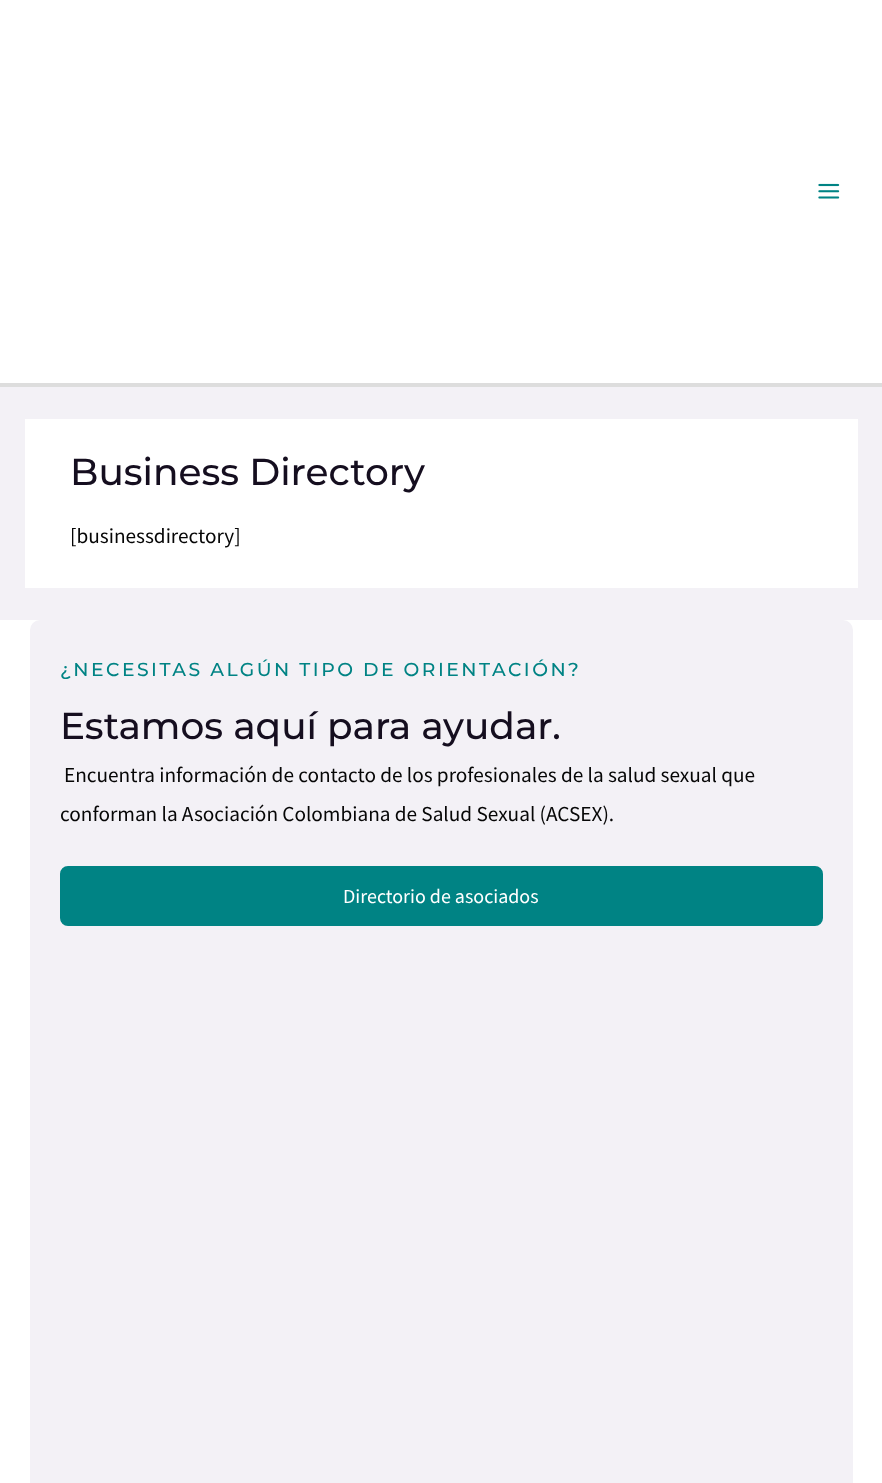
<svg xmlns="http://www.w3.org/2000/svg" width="882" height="1483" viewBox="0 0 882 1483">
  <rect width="100%" height="100%" fill="#f3f1f6"/>
  <rect x="0" y="0" width="882" height="383" fill="#ffffff"/>
  <rect x="0" y="383" width="882" height="4" fill="#dddddd"/>
  <image x="818" y="183" width="22" height="16" href="img1.png"/>
  <rect x="25" y="419" width="833" height="169" fill="#ffffff"/>
  <text x="70" y="485" font-family="Montserrat" font-size="37.5" font-weight="500" fill="#150e1f">Business Directory</text>
  <text x="70" y="543" font-family="Source Sans Pro" font-size="21.25" fill="#060606">[businessdirectory]</text>
  <rect x="0" y="620" width="882" height="863" fill="#ffffff"/>
  <rect x="30" y="620" width="823" height="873" rx="10" fill="#f3f1f6"/>
  <text x="60" y="676" font-family="Montserrat" font-size="18.75" font-weight="500" letter-spacing="2.5" fill="#008384">¿NECESITAS ALGÚN TIPO DE ORIENTACIÓN?</text>
  <text x="60" y="739" font-family="Montserrat" font-size="37.5" font-weight="500" fill="#150e1f">Estamos aquí para ayudar.</text>
  <text x="64" y="782" font-family="Source Sans Pro" font-size="21.25" fill="#060606">Encuentra información de contacto de los profesionales de la salud sexual que</text>
  <text x="60" y="821" font-family="Source Sans Pro" font-size="21.25" fill="#060606">conforman la Asociación Colombiana de Salud Sexual (ACSEX).</text>
  <rect x="61.5" y="867.5" width="760" height="57" rx="6.5" fill="#008384" stroke="#008384" stroke-width="3"/>
  <text x="343" y="903" font-family="Source Sans Pro" font-size="20" fill="#ffffff">Directorio de asociados</text>
</svg>
